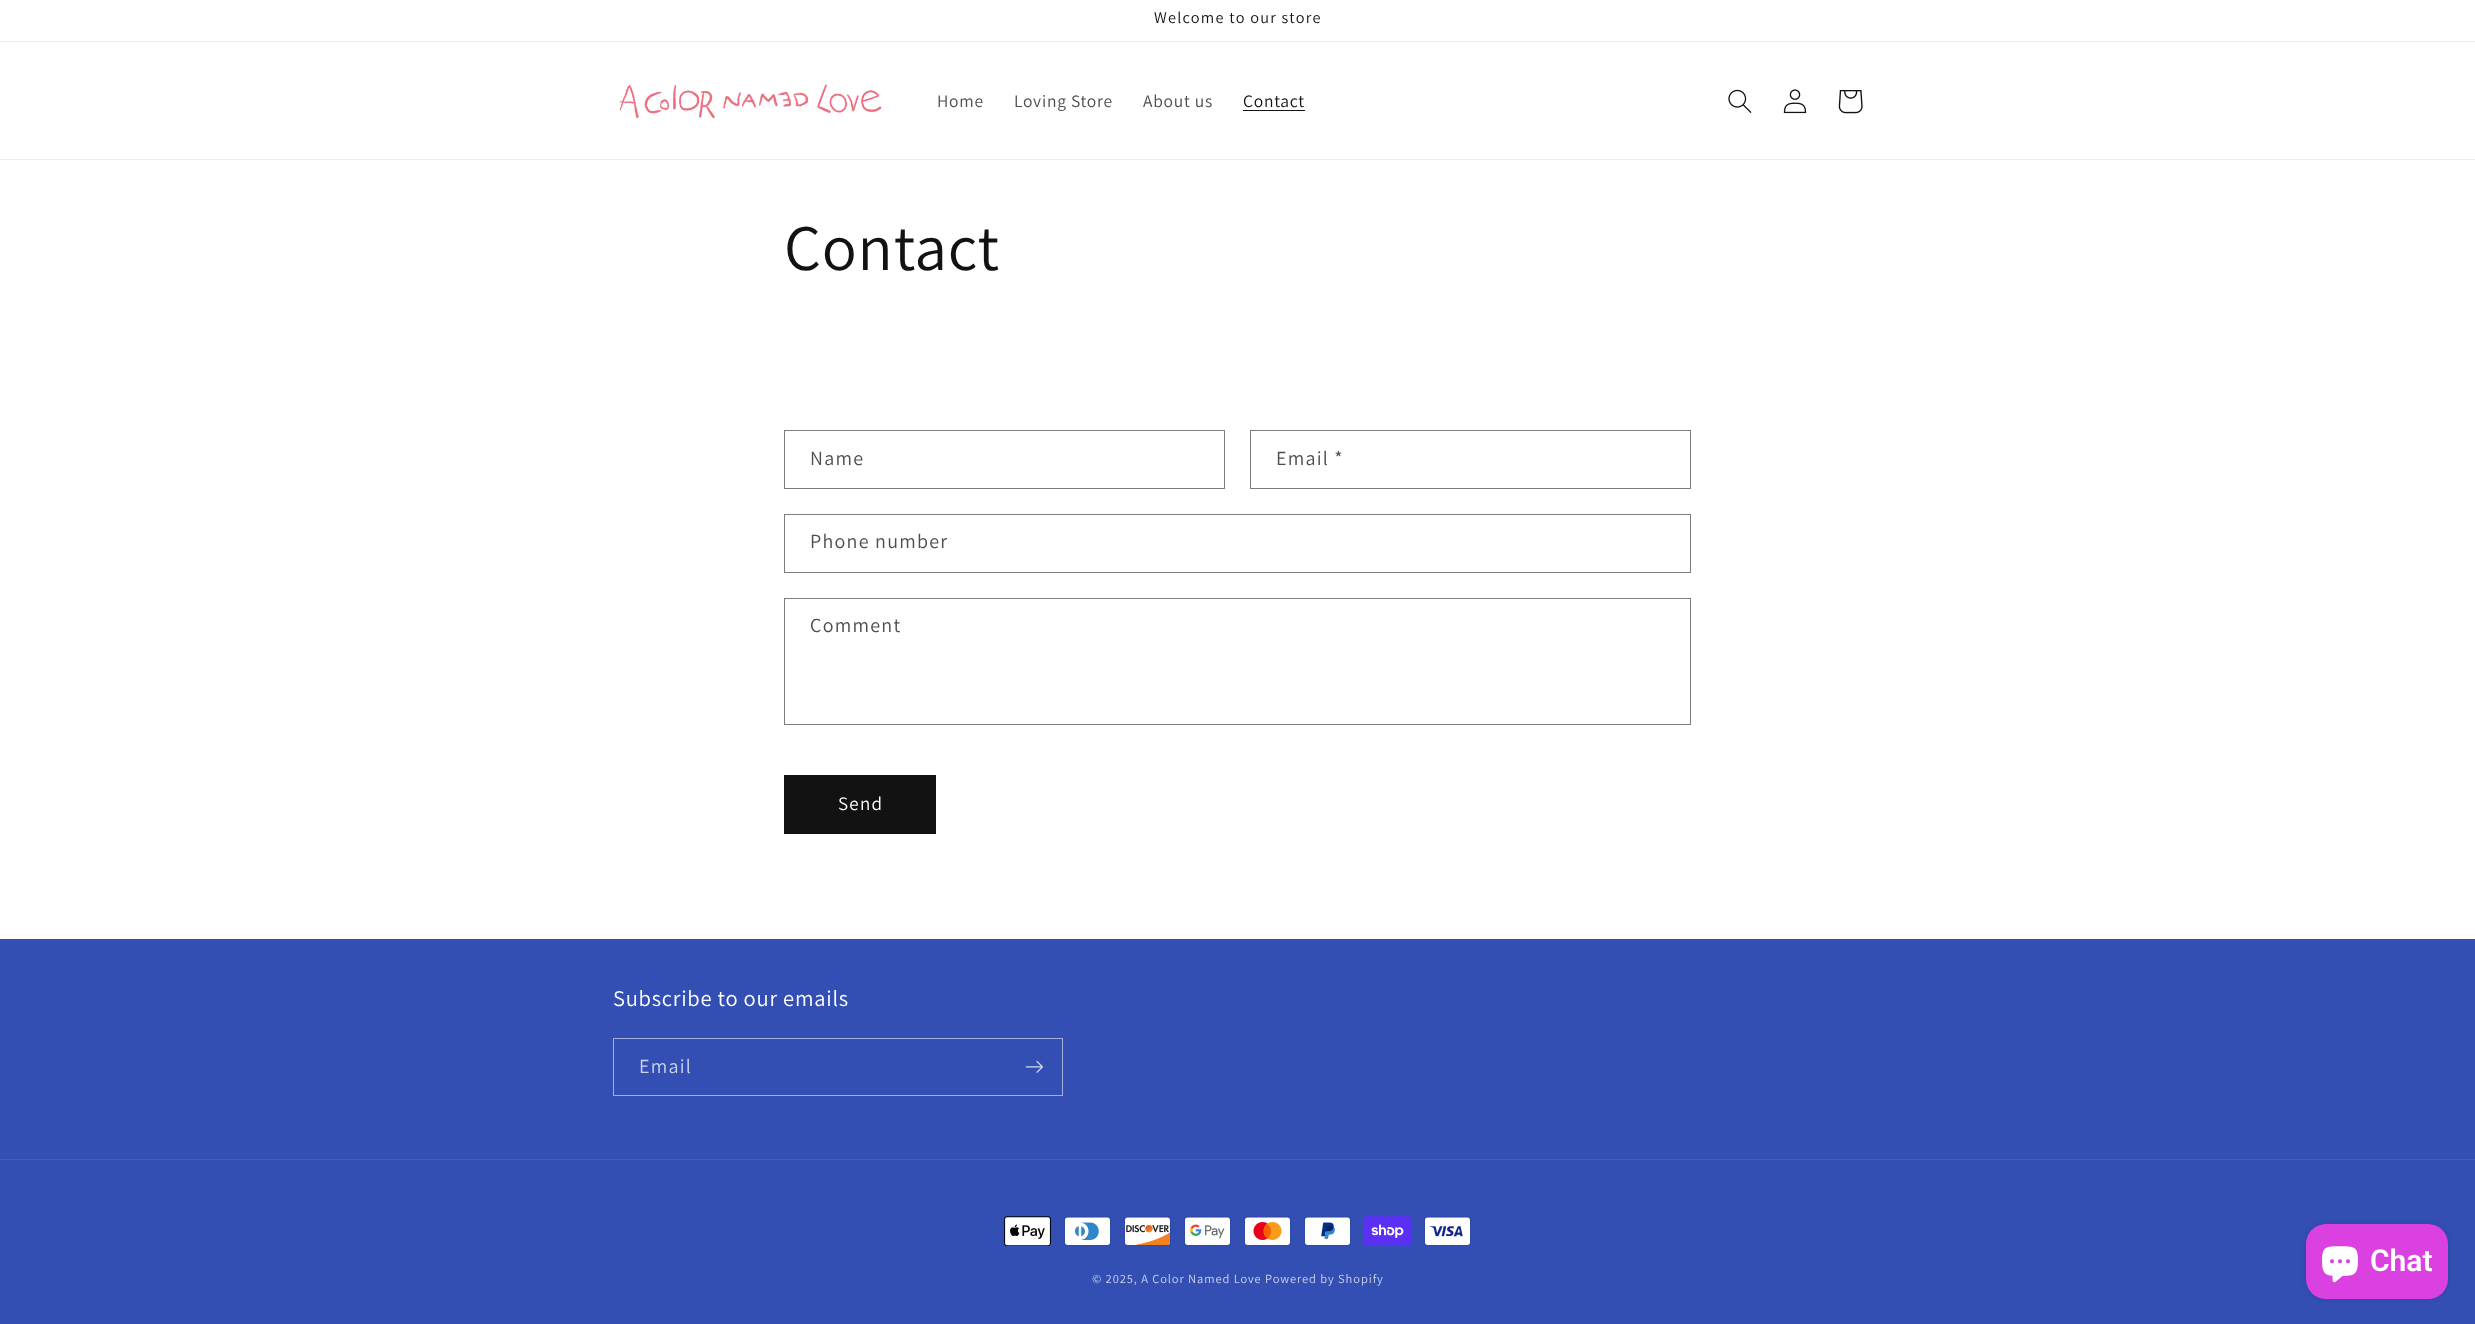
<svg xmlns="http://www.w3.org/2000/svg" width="2475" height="1324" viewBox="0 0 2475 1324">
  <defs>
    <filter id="blur1" x="-50%" y="-200%" width="200%" height="500%"><feGaussianBlur stdDeviation="3"/></filter>
  </defs>
  <rect width="100%" height="100%" fill="#ffffff"/>
  <rect x="0" y="41" width="2475" height="1" fill="#ececec"/>
  <text x="1154" y="23" font-family="Assistant" font-size="16.25" letter-spacing="1.25" fill="#121212">Welcome to our store</text>
  <rect x="0" y="159" width="2475" height="1" fill="#ececec"/>
  <image x="619" y="84" width="263" height="35" href="img1.png"/>
  <text x="937" y="107" font-family="Assistant" font-size="17.5" letter-spacing="0.75" fill="#4d4d4d">Home</text>
  <text x="1014" y="107" font-family="Assistant" font-size="17.5" letter-spacing="0.75" fill="#4d4d4d">Loving Store</text>
  <text x="1143" y="107" font-family="Assistant" font-size="17.5" letter-spacing="0.75" fill="#4d4d4d">About us</text>
  <text x="1243" y="107" font-family="Assistant" font-size="17.5" letter-spacing="0.75" fill="#121212">Contact</text>
  <rect x="1243" y="110" width="62" height="1" fill="#121212"/>
  <image x="1728" y="89" width="24" height="24" href="img2.png"/>
  <image x="1783" y="89" width="24" height="25" href="img3.png"/>
  <image x="1838" y="90" width="25" height="24" href="img4.png"/>
  <text x="784" y="270" font-family="Assistant" font-size="65" letter-spacing="0.75" fill="#121212">Contact</text>
  <rect x="784.5" y="430.5" width="440" height="58" fill="none" stroke="#7d7d7d"/>
  <text x="810" y="465" font-family="Assistant" font-size="20" letter-spacing="1.25" fill="#4d4d4d">Name</text>
  <rect x="1250.5" y="430.5" width="440" height="58" fill="none" stroke="#7d7d7d"/>
  <text x="1276" y="465" font-family="Assistant" font-size="20" letter-spacing="1.25" fill="#4d4d4d">Email *</text>
  <rect x="784.5" y="514.5" width="906" height="58" fill="none" stroke="#7d7d7d"/>
  <text x="810" y="548" font-family="Assistant" font-size="20" letter-spacing="1.25" fill="#4d4d4d">Phone number</text>
  <rect x="784.5" y="598.5" width="906" height="126" fill="none" stroke="#7d7d7d"/>
  <text x="810" y="632" font-family="Assistant" font-size="20" letter-spacing="1.25" fill="#4d4d4d">Comment</text>
  <rect x="784" y="775" width="152" height="59" fill="#121212"/>
  <text x="838" y="810" font-family="Assistant" font-size="19" letter-spacing="1.25" fill="#ffffff">Send</text>
  <rect x="0" y="939" width="2475" height="385" fill="#334fb4"/>
  <text x="613" y="1006" font-family="Assistant" font-size="22.5" letter-spacing="0.75" fill="#ffffff">Subscribe to our emails</text>
  <rect x="613.5" y="1038.5" width="449" height="57" fill="none" stroke="#a3b0dd"/>
  <text x="639" y="1073" font-family="Assistant" font-size="20" letter-spacing="1.25" fill="#ccd3ec">Email</text>
  <image x="1025" y="1060" width="18" height="13" href="img5.png"/>
  <rect x="0" y="1159" width="2475" height="1" fill="#435dba"/>
  <image x="1004" y="1216" width="47" height="30" href="img6.png"/>
  <image x="1064" y="1216" width="47" height="30" href="img7.png"/>
  <image x="1124" y="1216" width="47" height="30" href="img8.png"/>
  <image x="1184" y="1216" width="47" height="30" href="img9.png"/>
  <image x="1244" y="1216" width="47" height="30" href="img10.png"/>
  <image x="1304" y="1216" width="47" height="30" href="img11.png"/>
  <image x="1364" y="1216" width="47" height="30" href="img12.png"/>
  <image x="1424" y="1216" width="47" height="30" href="img13.png"/>
  <text x="1092" y="1283" font-family="Assistant" font-size="12.5" letter-spacing="0.9" fill="#ccd3ec">© 2025, A Color Named Love</text>
  <text x="1265" y="1283" font-family="Assistant" font-size="12.5" letter-spacing="0.9" fill="#ccd3ec">Powered by Shopify</text>
  <rect x="2306" y="1224" width="142" height="75" rx="20" fill="#000000" fill-opacity="0.15" filter="url(#blur1)"/>
  <rect x="2306" y="1224" width="142" height="75" rx="20" fill="#db41e1"/>
  <image x="2322" y="1246" width="36" height="37" href="img14.png"/>
  <text x="2370" y="1271" font-family="Roboto" font-size="30" font-weight="600" fill="#ffffff">Chat</text>
</svg>
